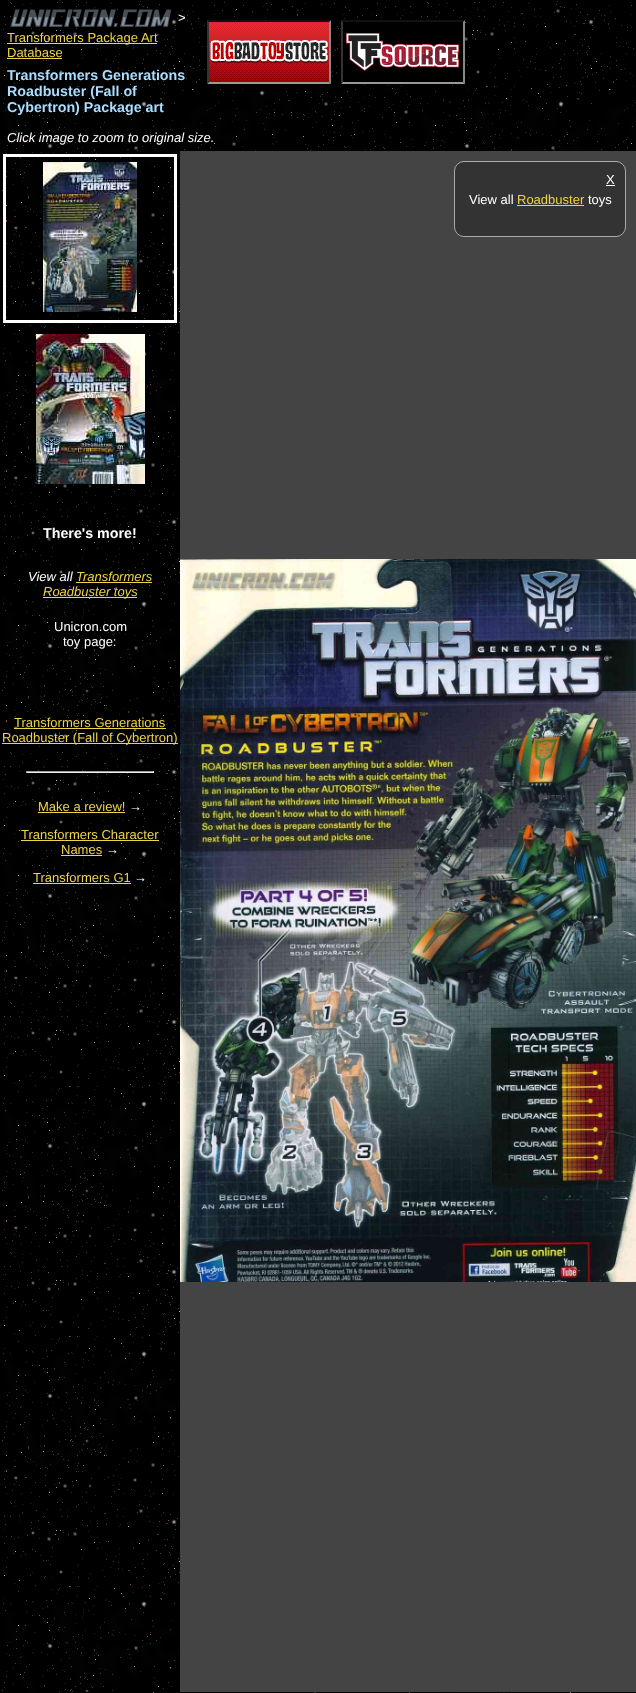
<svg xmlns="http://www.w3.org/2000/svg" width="636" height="1693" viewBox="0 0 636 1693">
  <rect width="100%" height="100%" fill="#000000"/>
  <image x="2" y="1" width="634" height="1692" href="img1.png"/>
  <image x="10" y="8" width="162" height="20" href="img2.png"/>
  <text x="178" y="22" font-family="Liberation Sans" font-size="13" fill="#ffffff">&gt;</text>
  <rect x="7" y="43" width="150" height="1" fill="#edd448"/>
  <text x="7" y="42" font-family="Liberation Sans" font-size="13" fill="#edd448">Transformers Package Art</text>
  <path d="M207 20H331L329 22H209Z" fill="#111111"/>
  <path d="M331 20V84L329 82V22Z" fill="#888888"/>
  <path d="M331 84H207L209 82H329Z" fill="#999999"/>
  <path d="M207 84V20L209 22V82Z" fill="#333333"/>
  <path d="M341 20H465L463 22H343Z" fill="#111111"/>
  <image x="209" y="22" width="120" height="60" href="img3.png"/>
  <path d="M465 20V84L463 82V22Z" fill="#888888"/>
  <path d="M465 84H341L343 82H463Z" fill="#999999"/>
  <path d="M341 84V20L343 22V82Z" fill="#333333"/>
  <image x="344" y="22" width="119" height="60" href="img4.png"/>
  <text x="7" y="57" font-family="Liberation Sans" font-size="13" fill="#edd448">Database</text>
  <rect x="7" y="58" width="55" height="1" fill="#edd448"/>
  <text x="7" y="80" font-family="Liberation Sans" font-size="14.25" font-weight="bold" fill="#aaddff">Transformers Generations</text>
  <text x="7" y="96" font-family="Liberation Sans" font-size="14.25" font-weight="bold" fill="#aaddff">Roadbuster (Fall of</text>
  <text x="7" y="112" font-family="Liberation Sans" font-size="14.25" font-weight="bold" fill="#aaddff">Cybertron) Package art</text>
  <text x="7" y="142" font-family="Liberation Sans" font-size="13" font-style="italic" fill="#ffffff">Click image to zoom to original size.</text>
  <rect x="180" y="151" width="456" height="1541" fill="#444444"/>
  <rect x="454.5" y="161.5" width="171" height="75" rx="9.5" fill="#333333" stroke="#aaaaaa"/>
  <text x="606" y="184" font-family="Liberation Sans" font-size="13" fill="#ffffff">X</text>
  <rect x="606" y="185" width="9" height="1" fill="#ffffff"/>
  <text x="469" y="204" font-family="Liberation Sans" font-size="13" fill="#ffffff">View all</text>
  <text x="517" y="204" font-family="Liberation Sans" font-size="13" fill="#edd448">Roadbuster</text>
  <rect x="517" y="205" width="67" height="1" fill="#edd448"/>
  <text x="588" y="204" font-family="Liberation Sans" font-size="13" fill="#ffffff">toys</text>
  <image x="180" y="559" width="456" height="723" href="img5.png"/>
  <rect x="4.5" y="155.5" width="171" height="166" fill="none" stroke="#ffffff" stroke-width="3"/>
  <image x="43" y="162" width="94" height="150" href="img6.png"/>
  <image x="36" y="334" width="109" height="150" href="img7.png"/>
  <text x="43" y="538" font-family="Liberation Sans" font-size="14.25" font-weight="bold" fill="#ffffff">There's more!</text>
  <text x="28" y="581" font-family="Liberation Sans" font-size="13" font-style="italic" fill="#ffffff">View all</text>
  <text x="76" y="581" font-family="Liberation Sans" font-size="13" font-style="italic" fill="#edd448">Transformers</text>
  <rect x="76" y="582" width="76" height="1" fill="#edd448"/>
  <rect x="43" y="597" width="94" height="1" fill="#edd448"/>
  <text x="43" y="596" font-family="Liberation Sans" font-size="13" font-style="italic" fill="#edd448">Roadbuster toys</text>
  <text x="54" y="631" font-family="Liberation Sans" font-size="13" fill="#ffffff">Unicron.com</text>
  <text x="63" y="646" font-family="Liberation Sans" font-size="13" fill="#ffffff">toy page:</text>
  <text x="14" y="727" font-family="Liberation Sans" font-size="13" fill="#edd448">Transformers Generations</text>
  <rect x="14" y="728" width="152" height="1" fill="#edd448"/>
  <rect x="2" y="743" width="176" height="1" fill="#edd448"/>
  <text x="2" y="742" font-family="Liberation Sans" font-size="13" fill="#edd448">Roadbuster (Fall of Cybertron)</text>
  <rect x="26" y="771" width="128" height="1" fill="#9f9f9f"/>
  <rect x="153" y="771" width="1" height="2" fill="#eeeeee"/>
  <rect x="26" y="772" width="128" height="1" fill="#eeeeee"/>
  <rect x="26" y="771" width="1" height="2" fill="#9f9f9f"/>
  <text x="38" y="811" font-family="Liberation Sans" font-size="13" fill="#edd448">Make a review!</text>
  <rect x="38" y="812" width="87" height="1" fill="#edd448"/>
  <text x="129" y="811" font-family="Liberation Sans" font-size="13" fill="#ffffff">→</text>
  <text x="21" y="839" font-family="Liberation Sans" font-size="13" fill="#edd448">Transformers Character</text>
  <rect x="21" y="840" width="138" height="1" fill="#edd448"/>
  <text x="61" y="854" font-family="Liberation Sans" font-size="13" fill="#edd448">Names</text>
  <rect x="61" y="855" width="41" height="1" fill="#edd448"/>
  <text x="106" y="854" font-family="Liberation Sans" font-size="13" fill="#ffffff">→</text>
  <text x="33" y="882" font-family="Liberation Sans" font-size="13" fill="#edd448">Transformers G1</text>
  <rect x="33" y="883" width="98" height="1" fill="#edd448"/>
  <text x="134" y="882" font-family="Liberation Sans" font-size="13" fill="#ffffff">→</text>
</svg>
